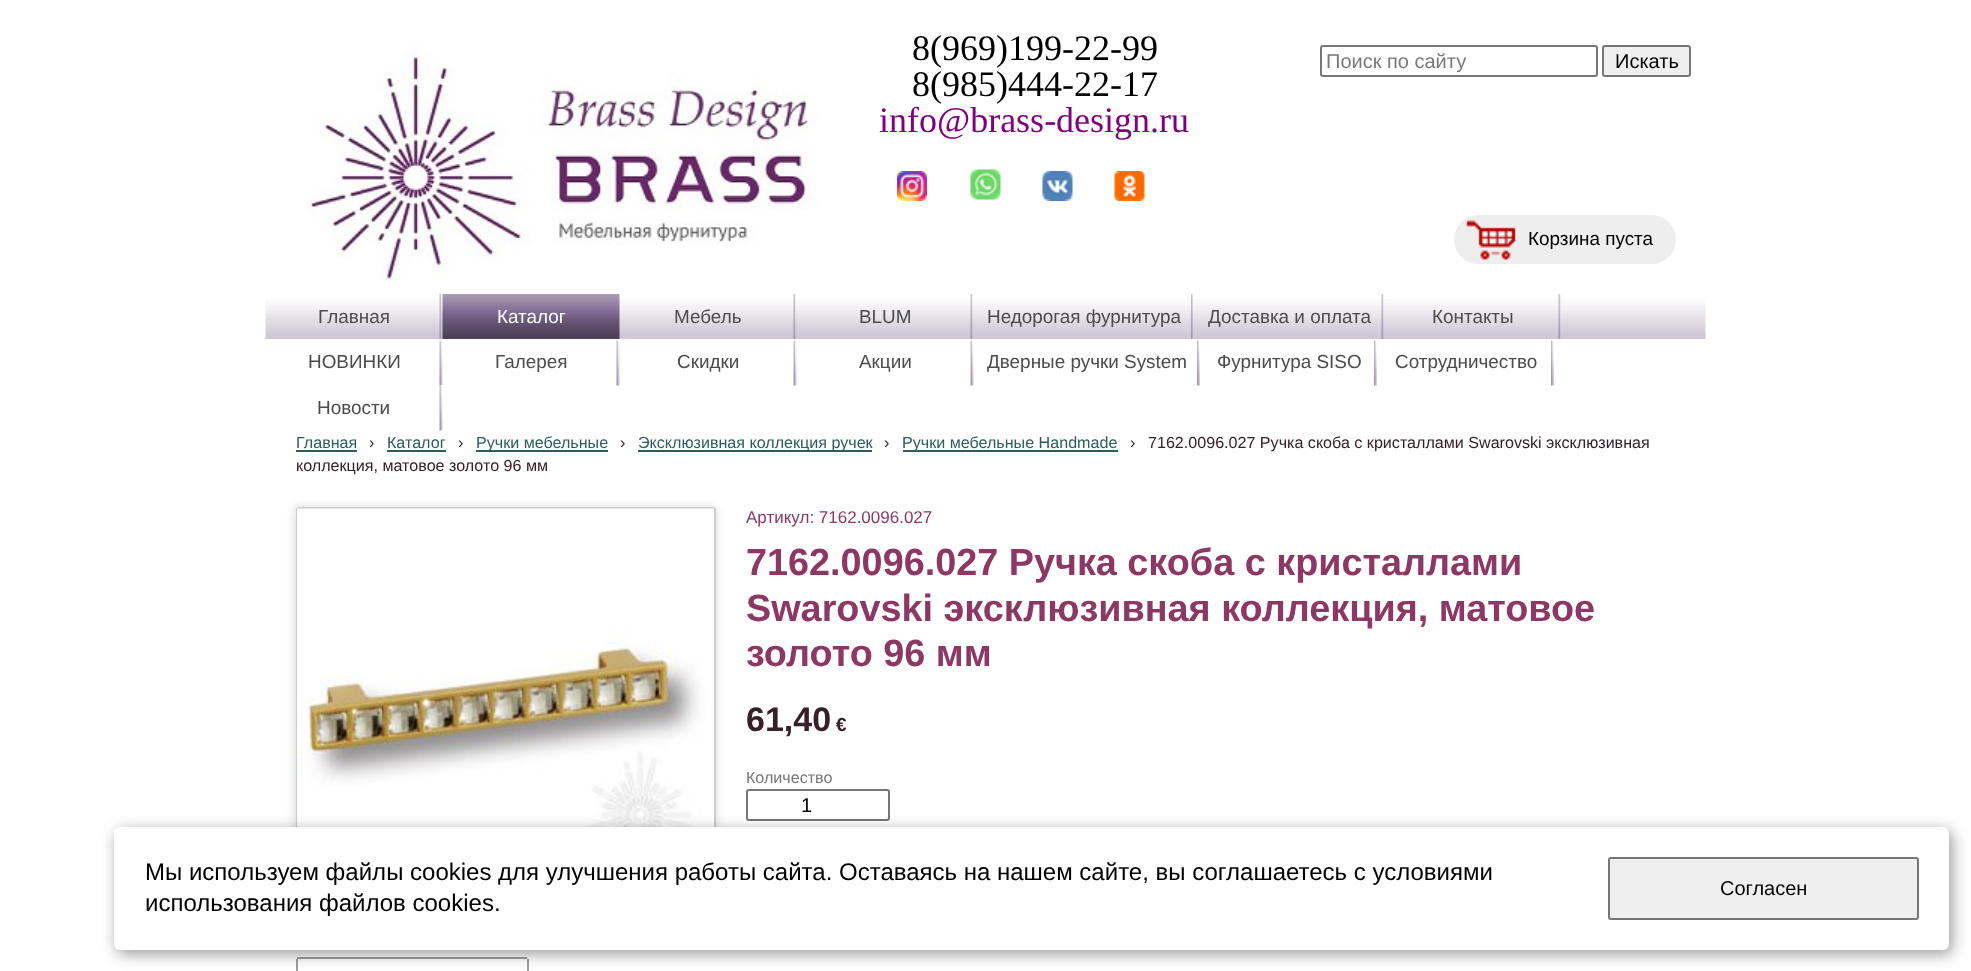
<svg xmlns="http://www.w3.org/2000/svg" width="1971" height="971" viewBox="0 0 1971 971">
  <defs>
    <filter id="blur1" x="-50%" y="-200%" width="200%" height="500%"><feGaussianBlur stdDeviation="4"/></filter>
    <filter id="blur2" x="-50%" y="-200%" width="200%" height="500%"><feGaussianBlur stdDeviation="7.5"/></filter>
  </defs>
  <rect width="100%" height="100%" fill="#ffffff"/>
  <image x="306" y="42" width="512" height="240" href="img1.png"/>
  <text x="912" y="60" font-family="Liberation Serif" font-size="36" fill="#000000">8(969)199-22-99</text>
  <text x="912" y="96" font-family="Liberation Serif" font-size="36" fill="#000000">8(985)444-22-17</text>
  <text x="879" y="132" font-family="Liberation Serif" font-size="36" fill="#800080">info@brass-design.ru</text>
  <rect x="1321" y="46" width="276" height="30" rx="2" fill="none" stroke="#767676" stroke-width="2"/>
  <text x="1326" y="68" font-family="Liberation Sans" font-size="20" fill="#787878">Поиск по сайту</text>
  <rect x="1603" y="46" width="87" height="30" rx="2" fill="#efefef" stroke="#767676" stroke-width="2"/>
  <text x="1615" y="68" font-family="Liberation Sans" font-size="20" fill="#000000">Искать</text>
  <rect x="1454" y="215" width="222" height="49" rx="24.5" fill="#eeeeee"/>
  <image x="1465" y="220" width="52" height="40" href="img2.png"/>
  <text x="1528" y="245" font-family="Liberation Sans" font-size="18.9" fill="#000000">Корзина пуста</text>
  <image x="897" y="171" width="30" height="30" href="img3.png"/>
  <image x="970" y="169" width="31" height="31" href="img4.png"/>
  <image x="1042" y="171" width="31" height="30" href="img5.png"/>
  <image x="1114" y="171" width="31" height="30" href="img6.png"/>
  <image x="265" y="299" width="1441" height="40" href="img7.png"/>
  <image x="439" y="294" width="3" height="45" href="img8.png"/>
  <text x="318" y="323" font-family="Liberation Sans" font-size="18.9" fill="#4c4c4c">Главная</text>
  <image x="442" y="294" width="178" height="45" href="img9.png"/>
  <text x="497" y="323" font-family="Liberation Sans" font-size="18.9" fill="#ffffff">Каталог</text>
  <image x="793" y="294" width="3" height="45" href="img8.png"/>
  <text x="674" y="323" font-family="Liberation Sans" font-size="18.9" fill="#4c4c4c">Мебель</text>
  <image x="970" y="294" width="3" height="45" href="img8.png"/>
  <text x="859" y="323" font-family="Liberation Sans" font-size="18.9" fill="#4c4c4c">BLUM</text>
  <image x="1191" y="294" width="2" height="45" href="img10.png"/>
  <text x="987" y="323" font-family="Liberation Sans" font-size="18.9" fill="#4c4c4c">Недорогая фурнитура</text>
  <image x="1381" y="294" width="3" height="45" href="img8.png"/>
  <text x="1208" y="323" font-family="Liberation Sans" font-size="18.9" fill="#4c4c4c">Доставка и оплата</text>
  <image x="1558" y="294" width="3" height="45" href="img8.png"/>
  <text x="1432" y="323" font-family="Liberation Sans" font-size="18.9" fill="#4c4c4c">Контакты</text>
  <image x="439" y="340" width="4" height="46" href="img11.png"/>
  <text x="308" y="368" font-family="Liberation Sans" font-size="18.9" fill="#4c4c4c">НОВИНКИ</text>
  <image x="616" y="340" width="4" height="46" href="img11.png"/>
  <text x="495" y="368" font-family="Liberation Sans" font-size="18.9" fill="#4c4c4c">Галерея</text>
  <image x="793" y="340" width="4" height="46" href="img11.png"/>
  <text x="677" y="368" font-family="Liberation Sans" font-size="18.9" fill="#4c4c4c">Скидки</text>
  <image x="970" y="340" width="4" height="46" href="img11.png"/>
  <text x="859" y="368" font-family="Liberation Sans" font-size="18.9" fill="#4c4c4c">Акции</text>
  <image x="1197" y="340" width="3" height="46" href="img12.png"/>
  <text x="987" y="368" font-family="Liberation Sans" font-size="18.9" fill="#4c4c4c">Дверные ручки System</text>
  <image x="1374" y="340" width="3" height="46" href="img13.png"/>
  <text x="1217" y="368" font-family="Liberation Sans" font-size="18.9" fill="#4c4c4c">Фурнитура SISO</text>
  <image x="1551" y="340" width="3" height="46" href="img13.png"/>
  <text x="1395" y="368" font-family="Liberation Sans" font-size="18.9" fill="#4c4c4c">Сотрудничество</text>
  <image x="439" y="385" width="4" height="46" href="img14.png"/>
  <text x="317" y="414" font-family="Liberation Sans" font-size="18.9" fill="#4c4c4c">Новости</text>
  <text x="296" y="448" font-family="Liberation Sans" font-size="16.1" fill="#2e5c64">Главная</text>
  <rect x="296" y="450" width="61" height="2" fill="#2e5c64"/>
  <text x="369" y="448" font-family="Liberation Sans" font-size="16.1" fill="#38202b">›</text>
  <text x="387" y="448" font-family="Liberation Sans" font-size="16.1" fill="#2e5c64">Каталог</text>
  <rect x="387" y="450" width="59" height="2" fill="#2e5c64"/>
  <text x="458" y="448" font-family="Liberation Sans" font-size="16.1" fill="#38202b">›</text>
  <rect x="476" y="450" width="132" height="2" fill="#2e5c64"/>
  <text x="476" y="448" font-family="Liberation Sans" font-size="16.1" fill="#2e5c64">Ручки мебельные</text>
  <text x="620" y="448" font-family="Liberation Sans" font-size="16.1" fill="#38202b">›</text>
  <rect x="638" y="450" width="234" height="2" fill="#2e5c64"/>
  <text x="638" y="448" font-family="Liberation Sans" font-size="16.1" fill="#2e5c64">Эксклюзивная коллекция ручек</text>
  <text x="884" y="448" font-family="Liberation Sans" font-size="16.1" fill="#38202b">›</text>
  <rect x="903" y="450" width="215" height="2" fill="#2e5c64"/>
  <text x="902" y="448" font-family="Liberation Sans" font-size="16.1" fill="#2e5c64">Ручки мебельные Handmade</text>
  <text x="1130" y="448" font-family="Liberation Sans" font-size="16.1" fill="#38202b">›</text>
  <text x="1148" y="448" font-family="Liberation Sans" font-size="16.1" fill="#38202b">7162.0096.027 Ручка скоба с кристаллами Swarovski эксклюзивная</text>
  <text x="296" y="471" font-family="Liberation Sans" font-size="16.1" fill="#38202b">коллекция, матовое золото 96 мм</text>
  <rect x="294" y="506" width="423" height="423" rx="5" fill="#dfdfdf" filter="url(#blur1)"/>
  <rect x="297" y="508" width="418" height="418" rx="2" fill="none" stroke="#cdcdcd" stroke-width="2"/>
  <image x="297" y="508" width="417" height="319" href="img15.png"/>
  <text x="746" y="523" font-family="Liberation Sans" font-size="17" fill="#8d3864">Артикул: 7162.0096.027</text>
  <text x="746" y="575" font-family="Liberation Sans" font-size="37.8" font-weight="bold" fill="#8d3864">7162.0096.027 Ручка скоба с кристаллами</text>
  <text x="746" y="621" font-family="Liberation Sans" font-size="37.8" font-weight="bold" fill="#8d3864">Swarovski эксклюзивная коллекция, матовое</text>
  <text x="746" y="666" font-family="Liberation Sans" font-size="37.8" font-weight="bold" fill="#8d3864">золото 96 мм</text>
  <text x="746" y="731" font-family="Liberation Sans" font-size="34" font-weight="bold" fill="#38202b">61,40</text>
  <text x="836" y="731" font-family="Liberation Sans" font-size="18.9" font-weight="bold" fill="#38202b">€</text>
  <text x="746" y="783" font-family="Liberation Sans" font-size="16.1" fill="#787878">Количество</text>
  <rect x="747" y="790" width="142" height="30" rx="2" fill="none" stroke="#767676" stroke-width="2"/>
  <text x="801" y="812" font-family="Liberation Sans" font-size="20" fill="#000000">1</text>
  <rect x="297" y="957" width="230" height="2" fill="#9f9f9f"/>
  <rect x="527" y="959" width="2" height="12" fill="#9f9f9f"/>
  <rect x="296" y="959" width="2" height="12" fill="#9f9f9f"/>
  <rect x="117" y="831" width="1835" height="123" rx="6" fill="#000000" fill-opacity="0.4" filter="url(#blur2)"/>
  <rect x="114" y="827" width="1835" height="123" rx="6" fill="#ffffff"/>
  <text x="145" y="880" font-family="Liberation Sans" font-size="24" fill="#000000">Мы используем файлы cookies для улучшения работы сайта. Оставаясь на нашем сайте, вы соглашаетесь с условиями</text>
  <text x="145" y="911" font-family="Liberation Sans" font-size="24" fill="#000000">использования файлов cookies.</text>
  <rect x="1609" y="858" width="309" height="61" rx="2" fill="#efefef" stroke="#767676" stroke-width="2"/>
  <text x="1720" y="895" font-family="Liberation Sans" font-size="20" fill="#000000">Согласен</text>
</svg>
